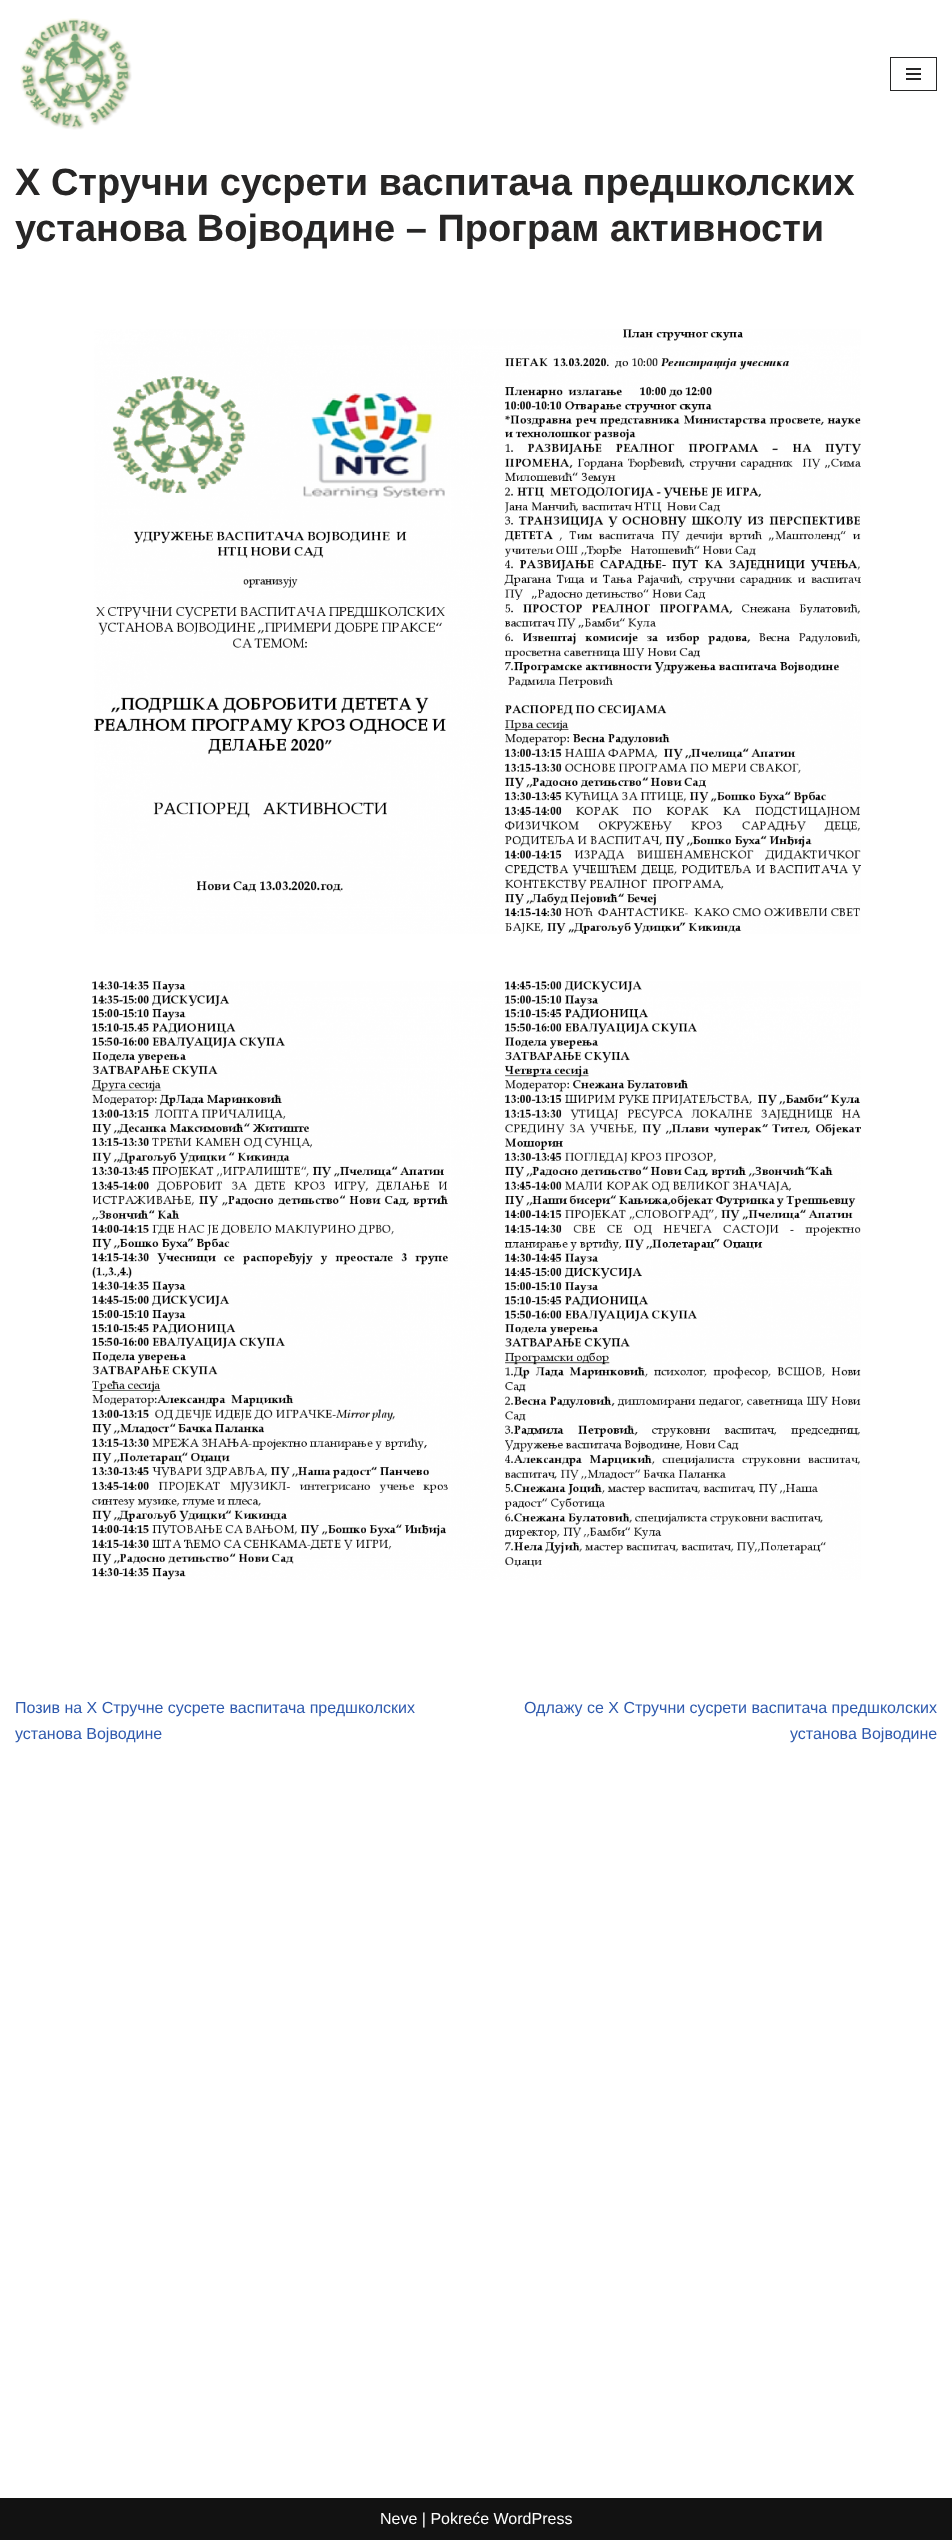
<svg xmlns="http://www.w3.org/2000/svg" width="952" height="2540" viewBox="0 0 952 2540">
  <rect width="100%" height="100%" fill="#ffffff"/>
  <image x="20" y="18" width="112" height="112" href="img1.png"/>
  <rect x="890.5" y="57.5" width="46" height="33" fill="none" stroke="#272626"/>
  <rect x="906" y="68" width="15" height="2" fill="#272626"/>
  <rect x="906" y="73" width="15" height="2" fill="#272626"/>
  <rect x="906" y="78" width="15" height="2" fill="#272626"/>
  <text x="15" y="195" font-family="Liberation Sans" font-size="38" font-weight="bold" fill="#272626">X Стручни сусрети васпитача предшколских</text>
  <text x="15" y="241" font-family="Liberation Sans" font-size="38" font-weight="bold" fill="#272626">установа Војводине – Програм активности</text>
  <image x="94" y="329" width="767" height="605" href="img2.png"/>
  <image x="91" y="981" width="770" height="599" href="img3.png"/>
  <text x="15" y="1713" font-family="Liberation Sans" font-size="16" fill="#2f5aae">Позив на X Стручнe сусрете васпитача предшколских</text>
  <text x="15" y="1739" font-family="Liberation Sans" font-size="16" fill="#2f5aae">установа Војводине</text>
  <text x="524" y="1713" font-family="Liberation Sans" font-size="16" fill="#2f5aae">Одлажу се X Стручни сусрети васпитача предшколских</text>
  <text x="790" y="1739" font-family="Liberation Sans" font-size="16" fill="#2f5aae">установа Војводине</text>
  <rect x="0" y="2498" width="952" height="42" fill="#121212"/>
  <text x="380" y="2524" font-family="Liberation Sans" font-size="16" fill="#ffffff">Neve | Pokreće WordPress</text>
</svg>
